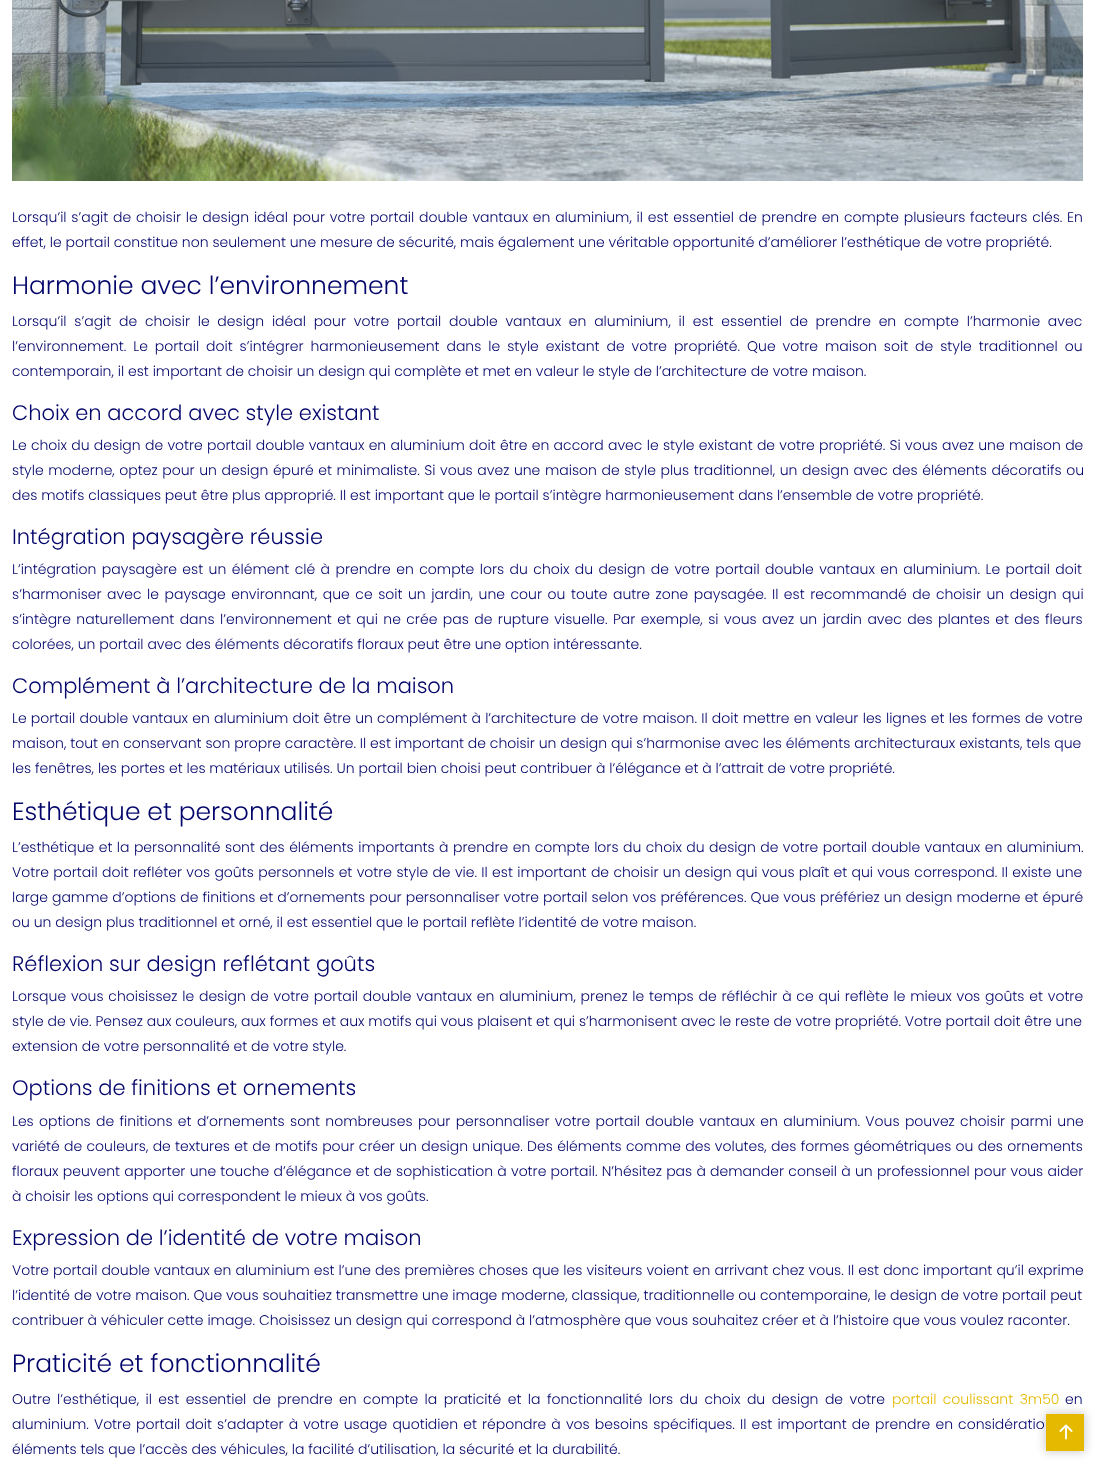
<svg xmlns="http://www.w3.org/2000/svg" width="1095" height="1472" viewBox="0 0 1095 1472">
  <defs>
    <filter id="blur1" x="-50%" y="-200%" width="200%" height="500%"><feGaussianBlur stdDeviation="5"/></filter>
  </defs>
  <rect width="100%" height="100%" fill="#ffffff"/>
  <image x="12" y="0" width="1071" height="181" href="img1.png"/>
  <text x="12" y="222" word-spacing="0.9" font-family="Poppins" font-size="14" font-weight="300" fill="#03056b">Lorsqu’il s’agit de choisir le design idéal pour votre portail double vantaux en aluminium, il est essentiel de prendre en compte plusieurs facteurs clés. En</text>
  <text x="12" y="247" font-family="Poppins" font-size="14" font-weight="300" fill="#03056b">effet, le portail constitue non seulement une mesure de sécurité, mais également une véritable opportunité d’améliorer l’esthétique de votre propriété.</text>
  <text x="12" y="294" font-family="Poppins" font-size="25" font-weight="300" fill="#03056b">Harmonie avec l’environnement</text>
  <text x="12" y="326" word-spacing="3.9" font-family="Poppins" font-size="14" font-weight="300" fill="#03056b">Lorsqu’il s’agit de choisir le design idéal pour votre portail double vantaux en aluminium, il est essentiel de prendre en compte l’harmonie avec</text>
  <text x="12" y="351" word-spacing="3.1" font-family="Poppins" font-size="14" font-weight="300" fill="#03056b">l’environnement. Le portail doit s’intégrer harmonieusement dans le style existant de votre propriété. Que votre maison soit de style traditionnel ou</text>
  <text x="12" y="376" font-family="Poppins" font-size="14" font-weight="300" fill="#03056b">contemporain, il est important de choisir un design qui complète et met en valeur le style de l’architecture de votre maison.</text>
  <text x="12" y="420" font-family="Poppins" font-size="21" font-weight="300" fill="#03056b">Choix en accord avec style existant</text>
  <text x="12" y="450" word-spacing="0.45" font-family="Poppins" font-size="14" font-weight="300" fill="#03056b">Le choix du design de votre portail double vantaux en aluminium doit être en accord avec le style existant de votre propriété. Si vous avez une maison de</text>
  <text x="12" y="475" word-spacing="0.75" font-family="Poppins" font-size="14" font-weight="300" fill="#03056b">style moderne, optez pour un design épuré et minimaliste. Si vous avez une maison de style plus traditionnel, un design avec des éléments décoratifs ou</text>
  <text x="12" y="500" font-family="Poppins" font-size="14" font-weight="300" fill="#03056b">des motifs classiques peut être plus approprié. Il est important que le portail s’intègre harmonieusement dans l’ensemble de votre propriété.</text>
  <text x="12" y="544" font-family="Poppins" font-size="21" font-weight="300" fill="#03056b">Intégration paysagère réussie</text>
  <text x="12" y="574" word-spacing="1.6" font-family="Poppins" font-size="14" font-weight="300" fill="#03056b">L’intégration paysagère est un élément clé à prendre en compte lors du choix du design de votre portail double vantaux en aluminium. Le portail doit</text>
  <text x="12" y="599" word-spacing="1.7" font-family="Poppins" font-size="14" font-weight="300" fill="#03056b">s’harmoniser avec le paysage environnant, que ce soit un jardin, une cour ou toute autre zone paysagée. Il est recommandé de choisir un design qui</text>
  <text x="12" y="624" word-spacing="1.6" font-family="Poppins" font-size="14" font-weight="300" fill="#03056b">s’intègre naturellement dans l’environnement et qui ne crée pas de rupture visuelle. Par exemple, si vous avez un jardin avec des plantes et des fleurs</text>
  <text x="12" y="649" font-family="Poppins" font-size="14" font-weight="300" fill="#03056b">colorées, un portail avec des éléments décoratifs floraux peut être une option intéressante.</text>
  <text x="12" y="693" font-family="Poppins" font-size="21" font-weight="300" fill="#03056b">Complément à l’architecture de la maison</text>
  <text x="12" y="723" word-spacing="0.4" font-family="Poppins" font-size="14" font-weight="300" fill="#03056b">Le portail double vantaux en aluminium doit être un complément à l’architecture de votre maison. Il doit mettre en valeur les lignes et les formes de votre</text>
  <text x="12" y="748" font-family="Poppins" font-size="14" font-weight="300" fill="#03056b">maison, tout en conservant son propre caractère. Il est important de choisir un design qui s’harmonise avec les éléments architecturaux existants, tels que</text>
  <text x="12" y="773" font-family="Poppins" font-size="14" font-weight="300" fill="#03056b">les fenêtres, les portes et les matériaux utilisés. Un portail bien choisi peut contribuer à l’élégance et à l’attrait de votre propriété.</text>
  <text x="12" y="820" font-family="Poppins" font-size="25" font-weight="300" fill="#03056b">Esthétique et personnalité</text>
  <text x="12" y="852" word-spacing="0.6" font-family="Poppins" font-size="14" font-weight="300" fill="#03056b">L’esthétique et la personnalité sont des éléments importants à prendre en compte lors du choix du design de votre portail double vantaux en aluminium.</text>
  <text x="12" y="877" word-spacing="0.5" font-family="Poppins" font-size="14" font-weight="300" fill="#03056b">Votre portail doit refléter vos goûts personnels et votre style de vie. Il est important de choisir un design qui vous plaît et qui vous correspond. Il existe une</text>
  <text x="12" y="902" word-spacing="0.25" font-family="Poppins" font-size="14" font-weight="300" fill="#03056b">large gamme d’options de finitions et d’ornements pour personnaliser votre portail selon vos préférences. Que vous préfériez un design moderne et épuré</text>
  <text x="12" y="927" font-family="Poppins" font-size="14" font-weight="300" fill="#03056b">ou un design plus traditionnel et orné, il est essentiel que le portail reflète l’identité de votre maison.</text>
  <text x="12" y="971" font-family="Poppins" font-size="21" font-weight="300" fill="#03056b">Réflexion sur design reflétant goûts</text>
  <text x="12" y="1001" word-spacing="0.95" font-family="Poppins" font-size="14" font-weight="300" fill="#03056b">Lorsque vous choisissez le design de votre portail double vantaux en aluminium, prenez le temps de réfléchir à ce qui reflète le mieux vos goûts et votre</text>
  <text x="12" y="1026" font-family="Poppins" font-size="14" font-weight="300" fill="#03056b">style de vie. Pensez aux couleurs, aux formes et aux motifs qui vous plaisent et qui s’harmonisent avec le reste de votre propriété. Votre portail doit être une</text>
  <text x="12" y="1051" font-family="Poppins" font-size="14" font-weight="300" fill="#03056b">extension de votre personnalité et de votre style.</text>
  <text x="12" y="1095" font-family="Poppins" font-size="21" font-weight="300" fill="#03056b">Options de finitions et ornements</text>
  <text x="12" y="1126" word-spacing="1.5" font-family="Poppins" font-size="14" font-weight="300" fill="#03056b">Les options de finitions et d’ornements sont nombreuses pour personnaliser votre portail double vantaux en aluminium. Vous pouvez choisir parmi une</text>
  <text x="12" y="1151" word-spacing="0.45" font-family="Poppins" font-size="14" font-weight="300" fill="#03056b">variété de couleurs, de textures et de motifs pour créer un design unique. Des éléments comme des volutes, des formes géométriques ou des ornements</text>
  <text x="12" y="1176" word-spacing="0.4" font-family="Poppins" font-size="14" font-weight="300" fill="#03056b">floraux peuvent apporter une touche d’élégance et de sophistication à votre portail. N’hésitez pas à demander conseil à un professionnel pour vous aider</text>
  <text x="12" y="1201" font-family="Poppins" font-size="14" font-weight="300" fill="#03056b">à choisir les options qui correspondent le mieux à vos goûts.</text>
  <text x="12" y="1245" font-family="Poppins" font-size="21" font-weight="300" fill="#03056b">Expression de l’identité de votre maison</text>
  <text x="12" y="1275" word-spacing="0.2" font-family="Poppins" font-size="14" font-weight="300" fill="#03056b">Votre portail double vantaux en aluminium est l’une des premières choses que les visiteurs voient en arrivant chez vous. Il est donc important qu’il exprime</text>
  <text x="12" y="1300" font-family="Poppins" font-size="14" font-weight="300" fill="#03056b">l’identité de votre maison. Que vous souhaitiez transmettre une image moderne, classique, traditionnelle ou contemporaine, le design de votre portail peut</text>
  <text x="12" y="1325" font-family="Poppins" font-size="14" font-weight="300" fill="#03056b">contribuer à véhiculer cette image. Choisissez un design qui correspond à l’atmosphère que vous souhaitez créer et à l’histoire que vous voulez raconter.</text>
  <text x="12" y="1372" font-family="Poppins" font-size="25" font-weight="300" fill="#03056b">Praticité et fonctionnalité</text>
  <text x="12" y="1404" word-spacing="2.6" font-family="Poppins" font-size="14" font-weight="300" fill="#03056b">Outre l’esthétique, il est essentiel de prendre en compte la praticité et la fonctionnalité lors du choix du design de votre</text>
  <text x="892" y="1404" word-spacing="2.6" font-family="Poppins" font-size="14" font-weight="300" fill="#e5b900">portail coulissant 3m50</text>
  <text x="1065" y="1404" font-family="Poppins" font-size="14" font-weight="300" fill="#03056b">en</text>
  <text x="12" y="1429" word-spacing="1.25" font-family="Poppins" font-size="14" font-weight="300" fill="#03056b">aluminium. Votre portail doit s’adapter à votre usage quotidien et répondre à vos besoins spécifiques. Il est important de prendre en considératio</text>
  <text x="12" y="1454" font-family="Poppins" font-size="14" font-weight="300" fill="#03056b">éléments tels que l’accès des véhicules, la facilité d’utilisation, la sécurité et la durabilité.</text>
  <rect x="1045" y="1413" width="40" height="39" fill="#000000" fill-opacity="0.2" filter="url(#blur1)"/>
  <rect x="1046" y="1414" width="38" height="37" fill="#e5b900"/>
  <image x="1059" y="1424" width="14" height="16" href="img2.png"/>
</svg>
